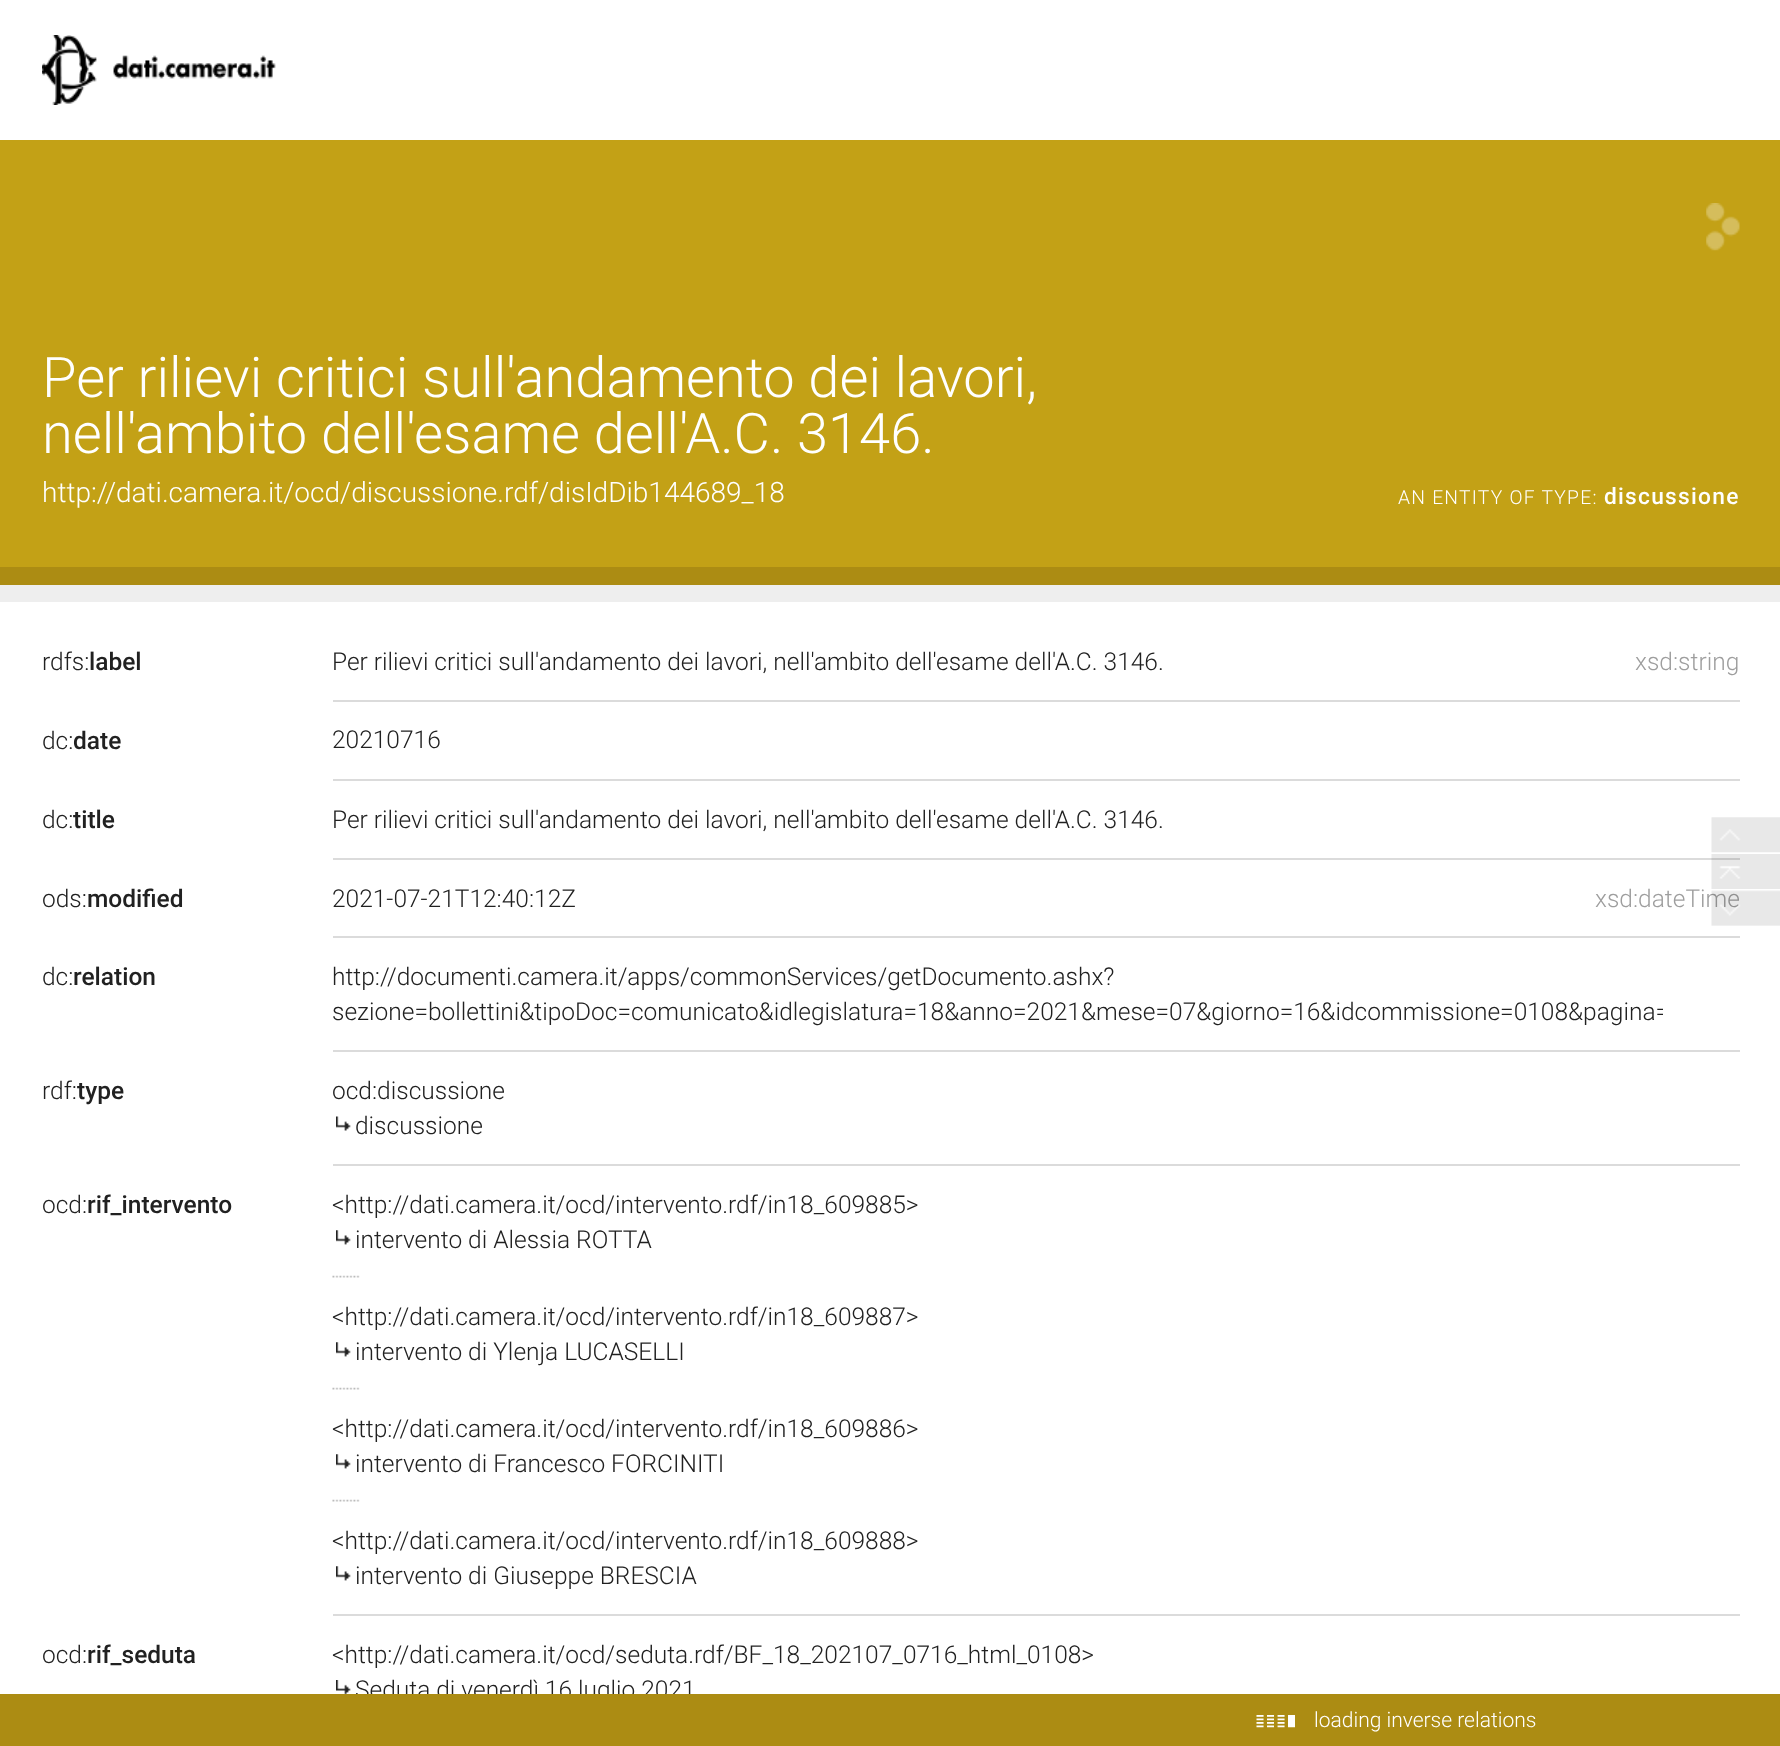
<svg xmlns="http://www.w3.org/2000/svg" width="1780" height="1746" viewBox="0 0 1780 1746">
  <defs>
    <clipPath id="clip1"><rect x="333" y="959" width="1330" height="70"/></clipPath>
  </defs>
  <rect width="100%" height="100%" fill="#ac8c13"/>
  <rect x="0" y="0" width="1780" height="140" fill="#ffffff"/>
  <image x="42" y="35" width="234" height="70" href="img1.png"/>
  <rect x="0" y="140" width="1780" height="427" fill="#c3a116"/>
  <text x="42" y="397" font-family="Roboto" font-size="56" font-weight="300" fill="#ffffff">Per rilievi critici sull'andamento dei lavori,</text>
  <text x="42" y="453" font-family="Roboto" font-size="56" font-weight="300" fill="#ffffff">nell'ambito dell'esame dell'A.C. 3146.</text>
  <image x="1706" y="203" width="34" height="48" href="img2.png"/>
  <text x="42" y="502" font-family="Roboto" font-size="28" font-weight="300" fill="#ffffff">http://dati.camera.it/ocd/discussione.rdf/disIdDib144689_18</text>
  <text x="1398" y="504" font-family="Roboto" font-size="19.25" font-weight="300" letter-spacing="1.25" fill="#ffffff">AN ENTITY OF TYPE:</text>
  <text x="1604" y="504" font-family="Roboto" font-size="22.75" font-weight="500" letter-spacing="1.25" fill="#ffffff">discussione</text>
  <rect x="0" y="585" width="1780" height="17" fill="#eeeeee"/>
  <rect x="0" y="602" width="1780" height="1092" fill="#ffffff"/>
  <text x="42" y="670" font-family="Roboto" font-size="24.5" font-weight="300" fill="#212121">rdfs:</text>
  <text x="89" y="670" font-family="Roboto" font-size="24.5" font-weight="500" fill="#212121">label</text>
  <rect x="333" y="700" width="1407" height="2" fill="#dbdbdb"/>
  <text x="332" y="670" font-family="Roboto" font-size="24.5" font-weight="300" fill="#212121">Per rilievi critici sull'andamento dei lavori, nell'ambito dell'esame dell'A.C. 3146.</text>
  <text x="1635" y="670" font-family="Roboto" font-size="24.5" font-weight="300" fill="#9e9e9e">xsd:string</text>
  <text x="42" y="749" font-family="Roboto" font-size="24.5" font-weight="300" fill="#212121">dc:</text>
  <text x="73" y="749" font-family="Roboto" font-size="24.5" font-weight="500" fill="#212121">date</text>
  <rect x="333" y="779" width="1407" height="2" fill="#dbdbdb"/>
  <text x="332" y="748" font-family="Roboto" font-size="24.5" font-weight="300" fill="#212121">20210716</text>
  <text x="42" y="828" font-family="Roboto" font-size="24.5" font-weight="300" fill="#212121">dc:</text>
  <text x="73" y="828" font-family="Roboto" font-size="24.5" font-weight="500" fill="#212121">title</text>
  <rect x="333" y="858" width="1407" height="2" fill="#dbdbdb"/>
  <text x="332" y="828" font-family="Roboto" font-size="24.5" font-weight="300" fill="#212121">Per rilievi critici sull'andamento dei lavori, nell'ambito dell'esame dell'A.C. 3146.</text>
  <text x="42" y="907" font-family="Roboto" font-size="24.5" font-weight="300" fill="#212121">ods:</text>
  <text x="87" y="907" font-family="Roboto" font-size="24.5" font-weight="500" fill="#212121">modified</text>
  <rect x="333" y="936" width="1407" height="2" fill="#dbdbdb"/>
  <text x="332" y="907" font-family="Roboto" font-size="24.5" font-weight="300" fill="#212121">2021-07-21T12:40:12Z</text>
  <text x="1595" y="907" font-family="Roboto" font-size="24.5" font-weight="300" fill="#9e9e9e">xsd:dateTime</text>
  <text x="42" y="985" font-family="Roboto" font-size="24.5" font-weight="300" fill="#212121">dc:</text>
  <text x="73" y="985" font-family="Roboto" font-size="24.5" font-weight="500" fill="#212121">relation</text>
  <rect x="333" y="1050" width="1407" height="2" fill="#dbdbdb"/>
  <text x="332" y="985" font-family="Roboto" font-size="24.5" font-weight="300" fill="#212121">http://documenti.camera.it/apps/commonServices/getDocumento.ashx?</text>
  <g clip-path="url(#clip1)">
    <text x="332" y="1020" font-family="Roboto" font-size="24.5" font-weight="300" fill="#212121">sezione=bollettini&amp;tipoDoc=comunicato&amp;idlegislatura=18&amp;anno=2021&amp;mese=07&amp;giorno=16&amp;idcommissione=0108&amp;pagina=</text>
  </g>
  <text x="42" y="1099" font-family="Roboto" font-size="24.5" font-weight="300" fill="#212121">rdf:</text>
  <text x="77" y="1099" font-family="Roboto" font-size="24.5" font-weight="500" fill="#212121">type</text>
  <rect x="333" y="1164" width="1407" height="2" fill="#dbdbdb"/>
  <text x="332" y="1099" font-family="Roboto" font-size="24.5" font-weight="300" fill="#212121">ocd:discussione</text>
  <image x="336" y="1116" width="15" height="15" href="img3.png"/>
  <text x="355" y="1134" font-family="Roboto" font-size="24.5" font-weight="300" fill="#212121">discussione</text>
  <text x="42" y="1213" font-family="Roboto" font-size="24.5" font-weight="300" fill="#212121">ocd:</text>
  <text x="87" y="1213" font-family="Roboto" font-size="24.5" font-weight="500" fill="#212121">rif_intervento</text>
  <rect x="333" y="1614" width="1407" height="2" fill="#dbdbdb"/>
  <image x="332" y="1275" width="28" height="3" href="img4.png"/>
  <text x="332" y="1213" font-family="Roboto" font-size="24.5" font-weight="300" fill="#212121">&lt;http://dati.camera.it/ocd/intervento.rdf/in18_609885&gt;</text>
  <image x="336" y="1230" width="15" height="15" href="img5.png"/>
  <text x="355" y="1248" font-family="Roboto" font-size="24.5" font-weight="300" fill="#212121">intervento di Alessia ROTTA</text>
  <image x="332" y="1387" width="28" height="3" href="img4.png"/>
  <text x="332" y="1325" font-family="Roboto" font-size="24.5" font-weight="300" fill="#212121">&lt;http://dati.camera.it/ocd/intervento.rdf/in18_609887&gt;</text>
  <image x="336" y="1342" width="15" height="15" href="img5.png"/>
  <text x="355" y="1360" font-family="Roboto" font-size="24.5" font-weight="300" fill="#212121">intervento di Ylenja LUCASELLI</text>
  <image x="332" y="1499" width="28" height="3" href="img4.png"/>
  <text x="332" y="1437" font-family="Roboto" font-size="24.5" font-weight="300" fill="#212121">&lt;http://dati.camera.it/ocd/intervento.rdf/in18_609886&gt;</text>
  <image x="336" y="1454" width="15" height="15" href="img5.png"/>
  <text x="355" y="1472" font-family="Roboto" font-size="24.5" font-weight="300" fill="#212121">intervento di Francesco FORCINITI</text>
  <text x="332" y="1549" font-family="Roboto" font-size="24.5" font-weight="300" fill="#212121">&lt;http://dati.camera.it/ocd/intervento.rdf/in18_609888&gt;</text>
  <image x="336" y="1566" width="15" height="15" href="img5.png"/>
  <text x="355" y="1584" font-family="Roboto" font-size="24.5" font-weight="300" fill="#212121">intervento di Giuseppe BRESCIA</text>
  <text x="42" y="1663" font-family="Roboto" font-size="24.5" font-weight="300" fill="#212121">ocd:</text>
  <text x="87" y="1663" font-family="Roboto" font-size="24.5" font-weight="500" fill="#212121">rif_seduta</text>
  <text x="332" y="1663" font-family="Roboto" font-size="24.5" font-weight="300" fill="#212121">&lt;http://dati.camera.it/ocd/seduta.rdf/BF_18_202107_0716_html_0108&gt;</text>
  <image x="336" y="1680" width="15" height="14" href="img6.png"/>
  <text x="355" y="1698" font-family="Roboto" font-size="24.5" font-weight="300" fill="#212121">Seduta di venerdì 16 luglio 2021</text>
  <image x="1711" y="817" width="69" height="36" href="img7.png"/>
  <image x="1711" y="854" width="69" height="35" href="img8.png"/>
  <image x="1711" y="890" width="69" height="36" href="img9.png"/>
  <rect x="356" y="1694" width="335" height="10" fill="#ac8c13"/>
  <image x="1256" y="1715" width="39" height="13" href="img10.png"/>
  <text x="1314" y="1727" font-family="Roboto" font-size="21" font-weight="300" fill="#ffffff">loading inverse relations</text>
</svg>
